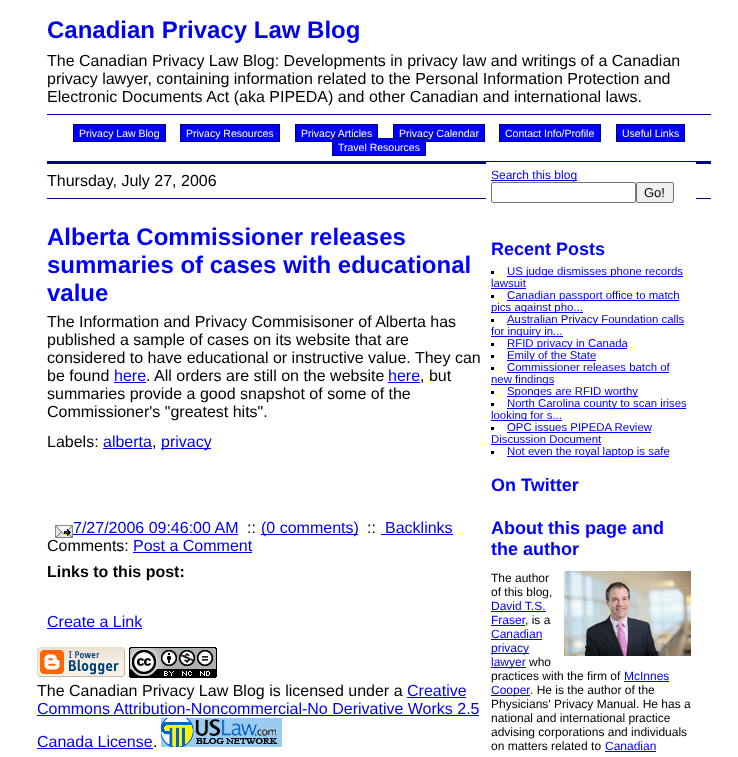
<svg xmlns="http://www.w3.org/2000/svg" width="738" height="757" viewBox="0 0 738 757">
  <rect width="100%" height="100%" fill="#ffffff"/>
  <text x="47" y="38" font-family="Liberation Sans" font-size="24" font-weight="bold" fill="#0000ee">Canadian Privacy Law Blog</text>
  <text x="47" y="66" font-family="Liberation Sans" font-size="16" fill="#000000">The Canadian Privacy Law Blog: Developments in privacy law and writings of a Canadian</text>
  <text x="47" y="84" font-family="Liberation Sans" font-size="16" fill="#000000">privacy lawyer, containing information related to the Personal Information Protection and</text>
  <text x="47" y="102" font-family="Liberation Sans" font-size="16" fill="#000000">Electronic Documents Act (aka PIPEDA) and other Canadian and international laws.</text>
  <rect x="47" y="114" width="664" height="1" fill="#00008b"/>
  <rect x="47" y="161" width="664" height="3" fill="#00008b"/>
  <rect x="73.5" y="124.5" width="92" height="17" fill="#0000ff" stroke="#00008b"/>
  <text x="79" y="137" font-family="Liberation Sans" font-size="10.5" fill="#ffffff">Privacy Law Blog</text>
  <rect x="180.5" y="124.5" width="99" height="17" fill="#0000ff" stroke="#00008b"/>
  <text x="186" y="137" font-family="Liberation Sans" font-size="10.5" fill="#ffffff">Privacy Resources</text>
  <rect x="295.5" y="124.5" width="82" height="17" fill="#0000ff" stroke="#00008b"/>
  <text x="301" y="137" font-family="Liberation Sans" font-size="10.5" fill="#ffffff">Privacy Articles</text>
  <rect x="393.5" y="124.5" width="91" height="17" fill="#0000ff" stroke="#00008b"/>
  <text x="399" y="137" font-family="Liberation Sans" font-size="10.5" fill="#ffffff">Privacy Calendar</text>
  <rect x="499.5" y="124.5" width="101" height="17" fill="#0000ff" stroke="#00008b"/>
  <text x="505" y="137" font-family="Liberation Sans" font-size="10.5" fill="#ffffff">Contact Info/Profile</text>
  <rect x="616.5" y="124.5" width="68" height="17" fill="#0000ff" stroke="#00008b"/>
  <text x="622" y="137" font-family="Liberation Sans" font-size="10.5" fill="#ffffff">Useful Links</text>
  <rect x="332.5" y="138.5" width="93" height="17" fill="#0000ff" stroke="#00008b"/>
  <text x="338" y="151" font-family="Liberation Sans" font-size="10.5" fill="#ffffff">Travel Resources</text>
  <rect x="47" y="198" width="664" height="1" fill="#00008b"/>
  <text x="47" y="186" font-family="Liberation Sans" font-size="16" fill="#000000">Thursday, July 27, 2006</text>
  <text x="47" y="245" font-family="Liberation Sans" font-size="24" font-weight="bold" fill="#0000ff">Alberta Commissioner releases</text>
  <text x="47" y="273" font-family="Liberation Sans" font-size="24" font-weight="bold" fill="#0000ff">summaries of cases with educational</text>
  <text x="47" y="301" font-family="Liberation Sans" font-size="24" font-weight="bold" fill="#0000ff">value</text>
  <text x="47" y="327" font-family="Liberation Sans" font-size="16" fill="#000000">The Information and Privacy Commisisoner of Alberta has</text>
  <text x="47" y="345" font-family="Liberation Sans" font-size="16" fill="#000000">published a sample of cases on its website that are</text>
  <text x="47" y="363" font-family="Liberation Sans" font-size="16" fill="#000000">considered to have educational or instructive value. They can</text>
  <text x="47" y="381" font-family="Liberation Sans" font-size="16" fill="#000000">be found</text>
  <text x="114" y="381" font-family="Liberation Sans" font-size="16" fill="#0000ee">here</text>
  <rect x="114" y="382" width="32" height="1" fill="#0000ee"/>
  <text x="146" y="381" font-family="Liberation Sans" font-size="16" fill="#000000">. All orders are still on the website</text>
  <text x="388" y="381" font-family="Liberation Sans" font-size="16" fill="#0000ee">here</text>
  <rect x="388" y="382" width="32" height="1" fill="#0000ee"/>
  <text x="420" y="381" font-family="Liberation Sans" font-size="16" fill="#000000">, but</text>
  <text x="47" y="399" font-family="Liberation Sans" font-size="16" fill="#000000">summaries provide a good snapshot of some of the</text>
  <text x="47" y="417" font-family="Liberation Sans" font-size="16" fill="#000000">Commissioner's "greatest hits".</text>
  <text x="47" y="447" font-family="Liberation Sans" font-size="16" fill="#000000">Labels:</text>
  <text x="103" y="447" font-family="Liberation Sans" font-size="16" fill="#0000ee">alberta</text>
  <rect x="103" y="448" width="49" height="1" fill="#0000ee"/>
  <text x="152" y="447" font-family="Liberation Sans" font-size="16" fill="#000000">,</text>
  <rect x="161" y="448" width="50" height="1" fill="#0000ee"/>
  <text x="161" y="447" font-family="Liberation Sans" font-size="16" fill="#0000ee">privacy</text>
  <image x="55" y="525" width="18" height="13" href="img1.png"/>
  <text x="73" y="533" font-family="Liberation Sans" font-size="16" fill="#0000ee">7/27/2006 09:46:00 AM</text>
  <rect x="73" y="534" width="165" height="1" fill="#0000ee"/>
  <text x="247" y="533" font-family="Liberation Sans" font-size="16" fill="#000000">::</text>
  <rect x="261" y="534" width="97" height="1" fill="#0000ee"/>
  <text x="261" y="533" font-family="Liberation Sans" font-size="16" fill="#0000ee">(0 comments)</text>
  <text x="367" y="533" font-family="Liberation Sans" font-size="16" fill="#000000">::</text>
  <text x="385" y="533" font-family="Liberation Sans" font-size="16" fill="#0000ee">Backlinks</text>
  <rect x="381" y="534" width="72" height="1" fill="#0000ee"/>
  <text x="47" y="551" font-family="Liberation Sans" font-size="16" fill="#000000">Comments:</text>
  <text x="133" y="551" font-family="Liberation Sans" font-size="16" fill="#0000ee">Post a Comment</text>
  <rect x="133" y="552" width="119" height="1" fill="#0000ee"/>
  <text x="47" y="577" font-family="Liberation Sans" font-size="16" font-weight="bold" fill="#000000">Links to this post:</text>
  <text x="47" y="627" font-family="Liberation Sans" font-size="16" fill="#0000ee">Create a Link</text>
  <rect x="47" y="628" width="95" height="1" fill="#0000ee"/>
  <rect x="486" y="162" width="210" height="37" fill="#ffffff"/>
  <rect x="491" y="180" width="86" height="1" fill="#0000ee"/>
  <text x="491" y="179" font-family="Liberation Sans" font-size="12" fill="#0000ee">Search this blog</text>
  <rect x="491.5" y="182.5" width="144" height="20" rx="1.5" fill="none" stroke="#767676"/>
  <rect x="636.5" y="182.5" width="37" height="20" rx="1.5" fill="#efefef" stroke="#767676"/>
  <text x="644" y="197" font-family="Liberation Sans" font-size="13" fill="#000000">Go!</text>
  <text x="491" y="255" font-family="Liberation Sans" font-size="18" font-weight="bold" fill="#0000ff">Recent Posts</text>
  <rect x="491" y="271" width="3" height="3" fill="#000000"/>
  <rect x="507" y="276" width="176" height="1" fill="#0000ee"/>
  <text x="507" y="275" font-family="Liberation Sans" font-size="11.4" fill="#0000ee">US judge dismisses phone records</text>
  <text x="491" y="287" font-family="Liberation Sans" font-size="11.4" fill="#0000ee">lawsuit</text>
  <rect x="491" y="288" width="35" height="1" fill="#0000ee"/>
  <rect x="491" y="295" width="3" height="3" fill="#000000"/>
  <rect x="507" y="300" width="172" height="1" fill="#0000ee"/>
  <text x="507" y="299" font-family="Liberation Sans" font-size="11.4" fill="#0000ee">Canadian passport office to match</text>
  <rect x="491" y="312" width="92" height="1" fill="#0000ee"/>
  <text x="491" y="311" font-family="Liberation Sans" font-size="11.4" fill="#0000ee">pics against pho...</text>
  <rect x="491" y="319" width="3" height="3" fill="#000000"/>
  <rect x="507" y="324" width="177" height="1" fill="#0000ee"/>
  <text x="507" y="323" font-family="Liberation Sans" font-size="11.4" fill="#0000ee">Australian Privacy Foundation calls</text>
  <rect x="491" y="336" width="72" height="1" fill="#0000ee"/>
  <text x="491" y="335" font-family="Liberation Sans" font-size="11.4" fill="#0000ee">for inquiry in...</text>
  <rect x="491" y="343" width="3" height="3" fill="#000000"/>
  <rect x="507" y="348" width="120" height="1" fill="#0000ee"/>
  <text x="507" y="347" font-family="Liberation Sans" font-size="11.4" fill="#0000ee">RFID privacy in Canada</text>
  <rect x="491" y="355" width="3" height="3" fill="#000000"/>
  <rect x="507" y="360" width="89" height="1" fill="#0000ee"/>
  <text x="507" y="359" font-family="Liberation Sans" font-size="11.4" fill="#0000ee">Emily of the State</text>
  <rect x="491" y="367" width="3" height="3" fill="#000000"/>
  <text x="507" y="371" font-family="Liberation Sans" font-size="11.4" fill="#0000ee">Commissioner releases batch of</text>
  <rect x="507" y="372" width="162" height="1" fill="#0000ee"/>
  <rect x="491" y="384" width="63" height="1" fill="#0000ee"/>
  <text x="491" y="383" font-family="Liberation Sans" font-size="11.4" fill="#0000ee">new findings</text>
  <rect x="491" y="391" width="3" height="3" fill="#000000"/>
  <rect x="507" y="396" width="131" height="1" fill="#0000ee"/>
  <text x="507" y="395" font-family="Liberation Sans" font-size="11.4" fill="#0000ee">Sponges are RFID worthy</text>
  <rect x="491" y="403" width="3" height="3" fill="#000000"/>
  <rect x="507" y="408" width="179" height="1" fill="#0000ee"/>
  <text x="507" y="407" font-family="Liberation Sans" font-size="11.4" fill="#0000ee">North Carolina county to scan irises</text>
  <rect x="491" y="420" width="71" height="1" fill="#0000ee"/>
  <text x="491" y="419" font-family="Liberation Sans" font-size="11.4" fill="#0000ee">looking for s...</text>
  <rect x="491" y="427" width="3" height="3" fill="#000000"/>
  <text x="507" y="431" font-family="Liberation Sans" font-size="11.4" fill="#0000ee">OPC issues PIPEDA Review</text>
  <rect x="507" y="432" width="144" height="1" fill="#0000ee"/>
  <text x="491" y="443" font-family="Liberation Sans" font-size="11.4" fill="#0000ee">Discussion Document</text>
  <rect x="491" y="444" width="110" height="1" fill="#0000ee"/>
  <rect x="491" y="451" width="3" height="3" fill="#000000"/>
  <rect x="507" y="456" width="162" height="1" fill="#0000ee"/>
  <text x="507" y="455" font-family="Liberation Sans" font-size="11.4" fill="#0000ee">Not even the royal laptop is safe</text>
  <text x="491" y="491" font-family="Liberation Sans" font-size="18" font-weight="bold" fill="#0000ff">On Twitter</text>
  <text x="491" y="534" font-family="Liberation Sans" font-size="18" font-weight="bold" fill="#0000ff">About this page and</text>
  <text x="491" y="555" font-family="Liberation Sans" font-size="18" font-weight="bold" fill="#0000ff">the author</text>
  <text x="491" y="582" font-family="Liberation Sans" font-size="12" fill="#000000">The author</text>
  <image x="564" y="571" width="127" height="85" href="img2.png"/>
  <text x="491" y="596" font-family="Liberation Sans" font-size="12" fill="#000000">of this blog,</text>
  <text x="491" y="610" font-family="Liberation Sans" font-size="12" fill="#0000ee">David T.S.</text>
  <rect x="491" y="611" width="55" height="1" fill="#0000ee"/>
  <text x="491" y="624" font-family="Liberation Sans" font-size="12" fill="#0000ee">Fraser</text>
  <rect x="491" y="625" width="34" height="1" fill="#0000ee"/>
  <text x="525" y="624" font-family="Liberation Sans" font-size="12" fill="#000000">, is a</text>
  <text x="491" y="638" font-family="Liberation Sans" font-size="12" fill="#0000ee">Canadian</text>
  <rect x="491" y="639" width="51" height="1" fill="#0000ee"/>
  <rect x="491" y="653" width="38" height="1" fill="#0000ee"/>
  <text x="491" y="652" font-family="Liberation Sans" font-size="12" fill="#0000ee">privacy</text>
  <rect x="491" y="667" width="35" height="1" fill="#0000ee"/>
  <text x="491" y="666" font-family="Liberation Sans" font-size="12" fill="#0000ee">lawyer</text>
  <text x="529" y="666" font-family="Liberation Sans" font-size="12" fill="#000000">who</text>
  <text x="491" y="680" font-family="Liberation Sans" font-size="12" fill="#000000">practices with the firm of</text>
  <text x="624" y="680" font-family="Liberation Sans" font-size="12" fill="#0000ee">McInnes</text>
  <rect x="624" y="681" width="45" height="1" fill="#0000ee"/>
  <rect x="491" y="695" width="39" height="1" fill="#0000ee"/>
  <text x="491" y="694" font-family="Liberation Sans" font-size="12" fill="#0000ee">Cooper</text>
  <text x="530" y="694" font-family="Liberation Sans" font-size="12" fill="#000000">. He is the author of the</text>
  <text x="491" y="708" font-family="Liberation Sans" font-size="12" fill="#000000">Physicians' Privacy Manual. He has a</text>
  <text x="491" y="722" font-family="Liberation Sans" font-size="12" fill="#000000">national and international practice</text>
  <text x="491" y="736" font-family="Liberation Sans" font-size="12" fill="#000000">advising corporations and individuals</text>
  <text x="491" y="750" font-family="Liberation Sans" font-size="12" fill="#000000">on matters related to</text>
  <text x="605" y="750" font-family="Liberation Sans" font-size="12" fill="#0000ee">Canadian</text>
  <rect x="605" y="751" width="51" height="1" fill="#0000ee"/>
  <image x="37" y="647" width="88" height="30" href="img3.png"/>
  <image x="129" y="647" width="88" height="31" href="img4.png"/>
  <text x="37" y="696" font-family="Liberation Sans" font-size="16" fill="#000000">The Canadian Privacy Law Blog is licensed under a</text>
  <text x="407" y="696" font-family="Liberation Sans" font-size="16" fill="#0000ee">Creative</text>
  <rect x="407" y="697" width="59" height="1" fill="#0000ee"/>
  <text x="37" y="714" font-family="Liberation Sans" font-size="16" fill="#0000ee">Commons Attribution-Noncommercial-No Derivative Works 2.5</text>
  <rect x="37" y="715" width="442" height="1" fill="#0000ee"/>
  <text x="37" y="747" font-family="Liberation Sans" font-size="16" fill="#0000ee">Canada License</text>
  <rect x="37" y="748" width="116" height="1" fill="#0000ee"/>
  <text x="153" y="747" font-family="Liberation Sans" font-size="16" fill="#000000">.</text>
  <image x="161" y="718" width="121" height="29" href="img5.png"/>
</svg>
